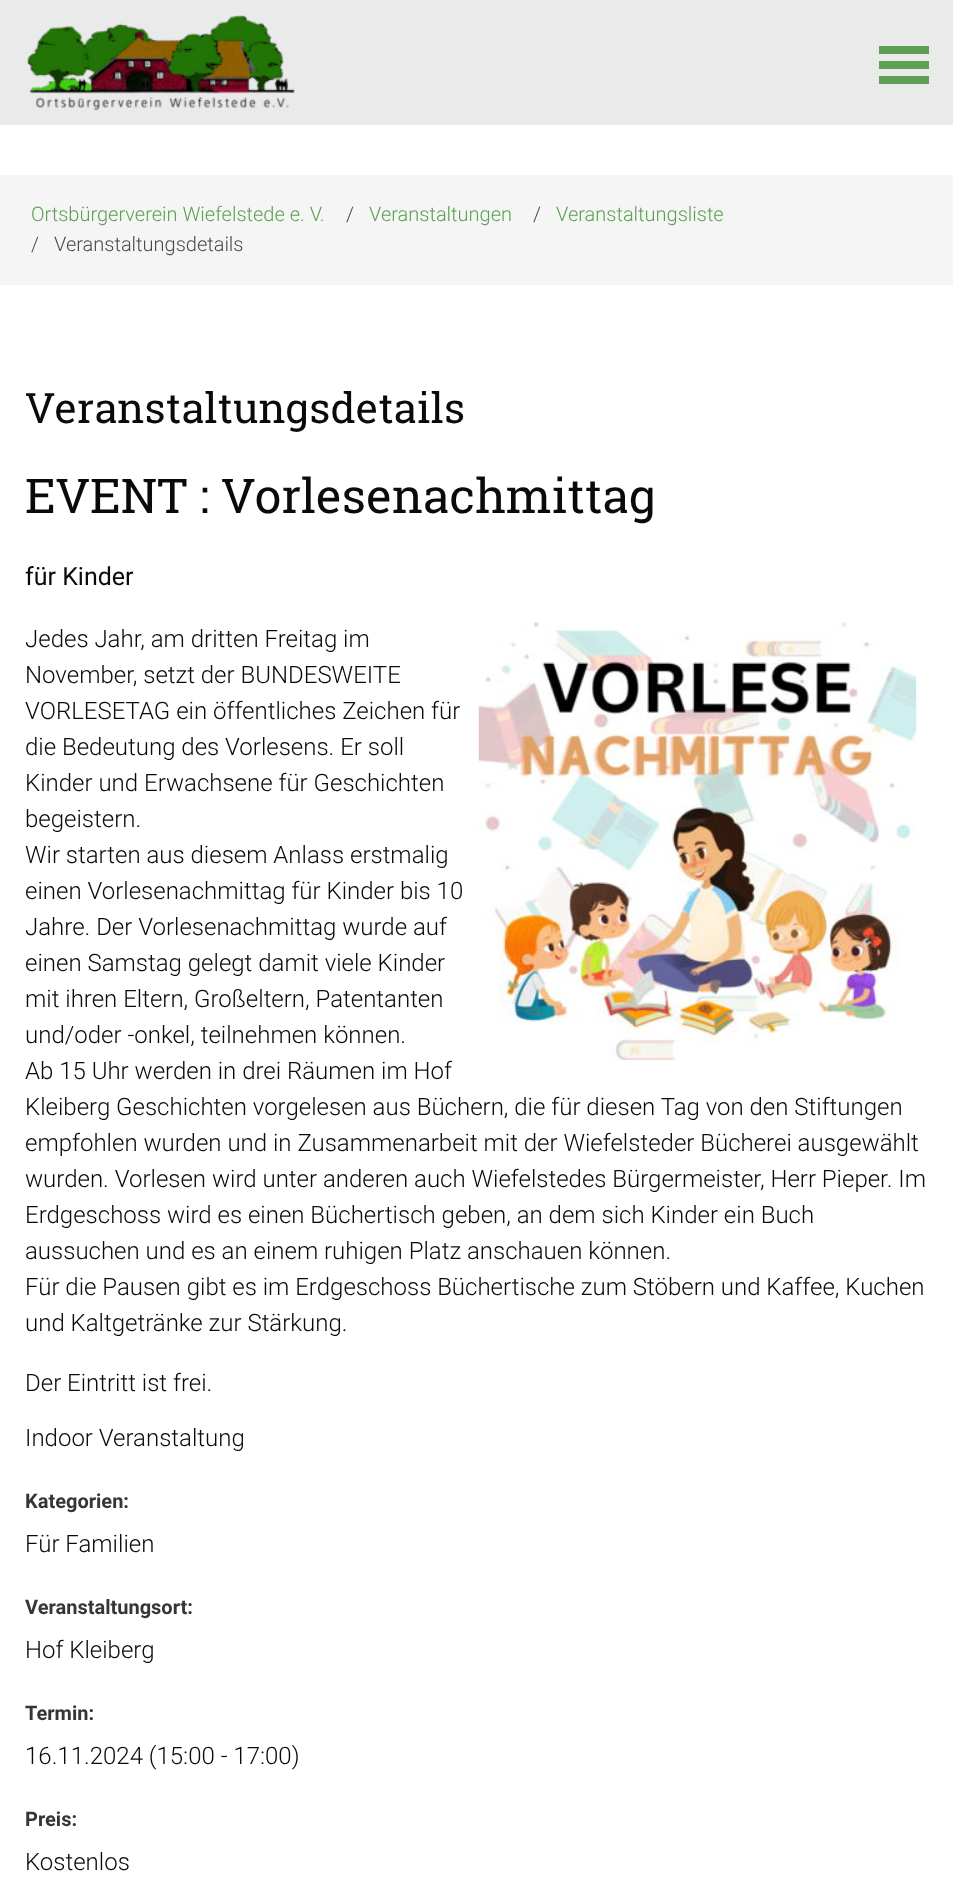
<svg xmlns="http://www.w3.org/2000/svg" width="953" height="1877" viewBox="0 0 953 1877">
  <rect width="100%" height="100%" fill="#ffffff"/>
  <rect x="0" y="0" width="953" height="125" fill="#eaeaea"/>
  <image x="27" y="15" width="268" height="96" href="img1.png"/>
  <rect x="879" y="46" width="50" height="8" fill="#5ca152"/>
  <rect x="879" y="61" width="50" height="8" fill="#5ca152"/>
  <rect x="879" y="76" width="50" height="8" fill="#5ca152"/>
  <rect x="0" y="175" width="953" height="110" fill="#f5f5f5"/>
  <text x="31" y="221" font-family="Roboto" font-size="20" font-weight="300" fill="#5ca152">Ortsbürgerverein Wiefelstede e. V.</text>
  <text x="346" y="221" font-family="Roboto" font-size="20" font-weight="300" fill="#4a4a4a">/</text>
  <text x="369" y="221" font-family="Roboto" font-size="20" font-weight="300" fill="#5ca152">Veranstaltungen</text>
  <text x="533" y="221" font-family="Roboto" font-size="20" font-weight="300" fill="#4a4a4a">/</text>
  <text x="556" y="221" font-family="Roboto" font-size="20" font-weight="300" fill="#5ca152">Veranstaltungsliste</text>
  <text x="31" y="251" font-family="Roboto" font-size="20" font-weight="300" fill="#4a4a4a">/</text>
  <text x="54" y="251" font-family="Roboto" font-size="20" font-weight="300" fill="#4a4a4a">Veranstaltungsdetails</text>
  <text x="25" y="423" font-family="Roboto Slab" font-size="42" fill="#0a0a0a">Veranstaltungsdetails</text>
  <text x="25" y="513" font-family="Roboto Slab" font-size="48" fill="#0a0a0a">EVENT : Vorlesenachmittag</text>
  <text x="25" y="585" font-family="Roboto" font-size="25" fill="#0a0a0a">für Kinder</text>
  <image x="478" y="622" width="439" height="438" href="img2.png"/>
  <text x="25" y="647" font-family="Roboto" font-size="24" font-weight="300" fill="#0a0a0a">Jedes Jahr, am dritten Freitag im</text>
  <text x="25" y="683" font-family="Roboto" font-size="24" font-weight="300" fill="#0a0a0a">November, setzt der BUNDESWEITE</text>
  <text x="25" y="719" font-family="Roboto" font-size="24" font-weight="300" fill="#0a0a0a">VORLESETAG ein öffentliches Zeichen für</text>
  <text x="25" y="755" font-family="Roboto" font-size="24" font-weight="300" fill="#0a0a0a">die Bedeutung des Vorlesens. Er soll</text>
  <text x="25" y="791" font-family="Roboto" font-size="24" font-weight="300" fill="#0a0a0a">Kinder und Erwachsene für Geschichten</text>
  <text x="25" y="827" font-family="Roboto" font-size="24" font-weight="300" fill="#0a0a0a">begeistern.</text>
  <text x="25" y="863" font-family="Roboto" font-size="24" font-weight="300" fill="#0a0a0a">Wir starten aus diesem Anlass erstmalig</text>
  <text x="25" y="899" font-family="Roboto" font-size="24" font-weight="300" fill="#0a0a0a">einen Vorlesenachmittag für Kinder bis 10</text>
  <text x="25" y="935" font-family="Roboto" font-size="24" font-weight="300" fill="#0a0a0a">Jahre. Der Vorlesenachmittag wurde auf</text>
  <text x="25" y="971" font-family="Roboto" font-size="24" font-weight="300" fill="#0a0a0a">einen Samstag gelegt damit viele Kinder</text>
  <text x="25" y="1007" font-family="Roboto" font-size="24" font-weight="300" fill="#0a0a0a">mit ihren Eltern, Großeltern, Patentanten</text>
  <text x="25" y="1043" font-family="Roboto" font-size="24" font-weight="300" fill="#0a0a0a">und/oder -onkel, teilnehmen können.</text>
  <text x="25" y="1079" font-family="Roboto" font-size="24" font-weight="300" fill="#0a0a0a">Ab 15 Uhr werden in drei Räumen im Hof</text>
  <text x="25" y="1115" font-family="Roboto" font-size="24" font-weight="300" fill="#0a0a0a">Kleiberg Geschichten vorgelesen aus Büchern, die für diesen Tag von den Stiftungen</text>
  <text x="25" y="1151" font-family="Roboto" font-size="24" font-weight="300" fill="#0a0a0a">empfohlen wurden und in Zusammenarbeit mit der Wiefelsteder Bücherei ausgewählt</text>
  <text x="25" y="1187" font-family="Roboto" font-size="24" font-weight="300" fill="#0a0a0a">wurden. Vorlesen wird unter anderen auch Wiefelstedes Bürgermeister, Herr Pieper. Im</text>
  <text x="25" y="1223" font-family="Roboto" font-size="24" font-weight="300" fill="#0a0a0a">Erdgeschoss wird es einen Büchertisch geben, an dem sich Kinder ein Buch</text>
  <text x="25" y="1259" font-family="Roboto" font-size="24" font-weight="300" fill="#0a0a0a">aussuchen und es an einem ruhigen Platz anschauen können.</text>
  <text x="25" y="1295" font-family="Roboto" font-size="24" font-weight="300" fill="#0a0a0a">Für die Pausen gibt es im Erdgeschoss Büchertische zum Stöbern und Kaffee, Kuchen</text>
  <text x="25" y="1331" font-family="Roboto" font-size="24" font-weight="300" fill="#0a0a0a">und Kaltgetränke zur Stärkung.</text>
  <text x="25" y="1391" font-family="Roboto" font-size="24" font-weight="300" fill="#0a0a0a">Der Eintritt ist frei.</text>
  <text x="25" y="1446" font-family="Roboto" font-size="24" font-weight="300" fill="#0a0a0a">Indoor Veranstaltung</text>
  <text x="25" y="1508" font-family="Roboto" font-size="20" font-weight="bold" fill="#363636">Kategorien:</text>
  <text x="25" y="1552" font-family="Roboto" font-size="24" font-weight="300" fill="#0a0a0a">Für Familien</text>
  <text x="25" y="1614" font-family="Roboto" font-size="20" font-weight="bold" fill="#363636">Veranstaltungsort:</text>
  <text x="25" y="1658" font-family="Roboto" font-size="24" font-weight="300" fill="#0a0a0a">Hof Kleiberg</text>
  <text x="25" y="1720" font-family="Roboto" font-size="20" font-weight="bold" fill="#363636">Termin:</text>
  <text x="25" y="1764" font-family="Roboto" font-size="24" font-weight="300" fill="#0a0a0a">16.11.2024 (15:00 - 17:00)</text>
  <text x="25" y="1826" font-family="Roboto" font-size="20" font-weight="bold" fill="#363636">Preis:</text>
  <text x="25" y="1870" font-family="Roboto" font-size="24" font-weight="300" fill="#0a0a0a">Kostenlos</text>
</svg>
